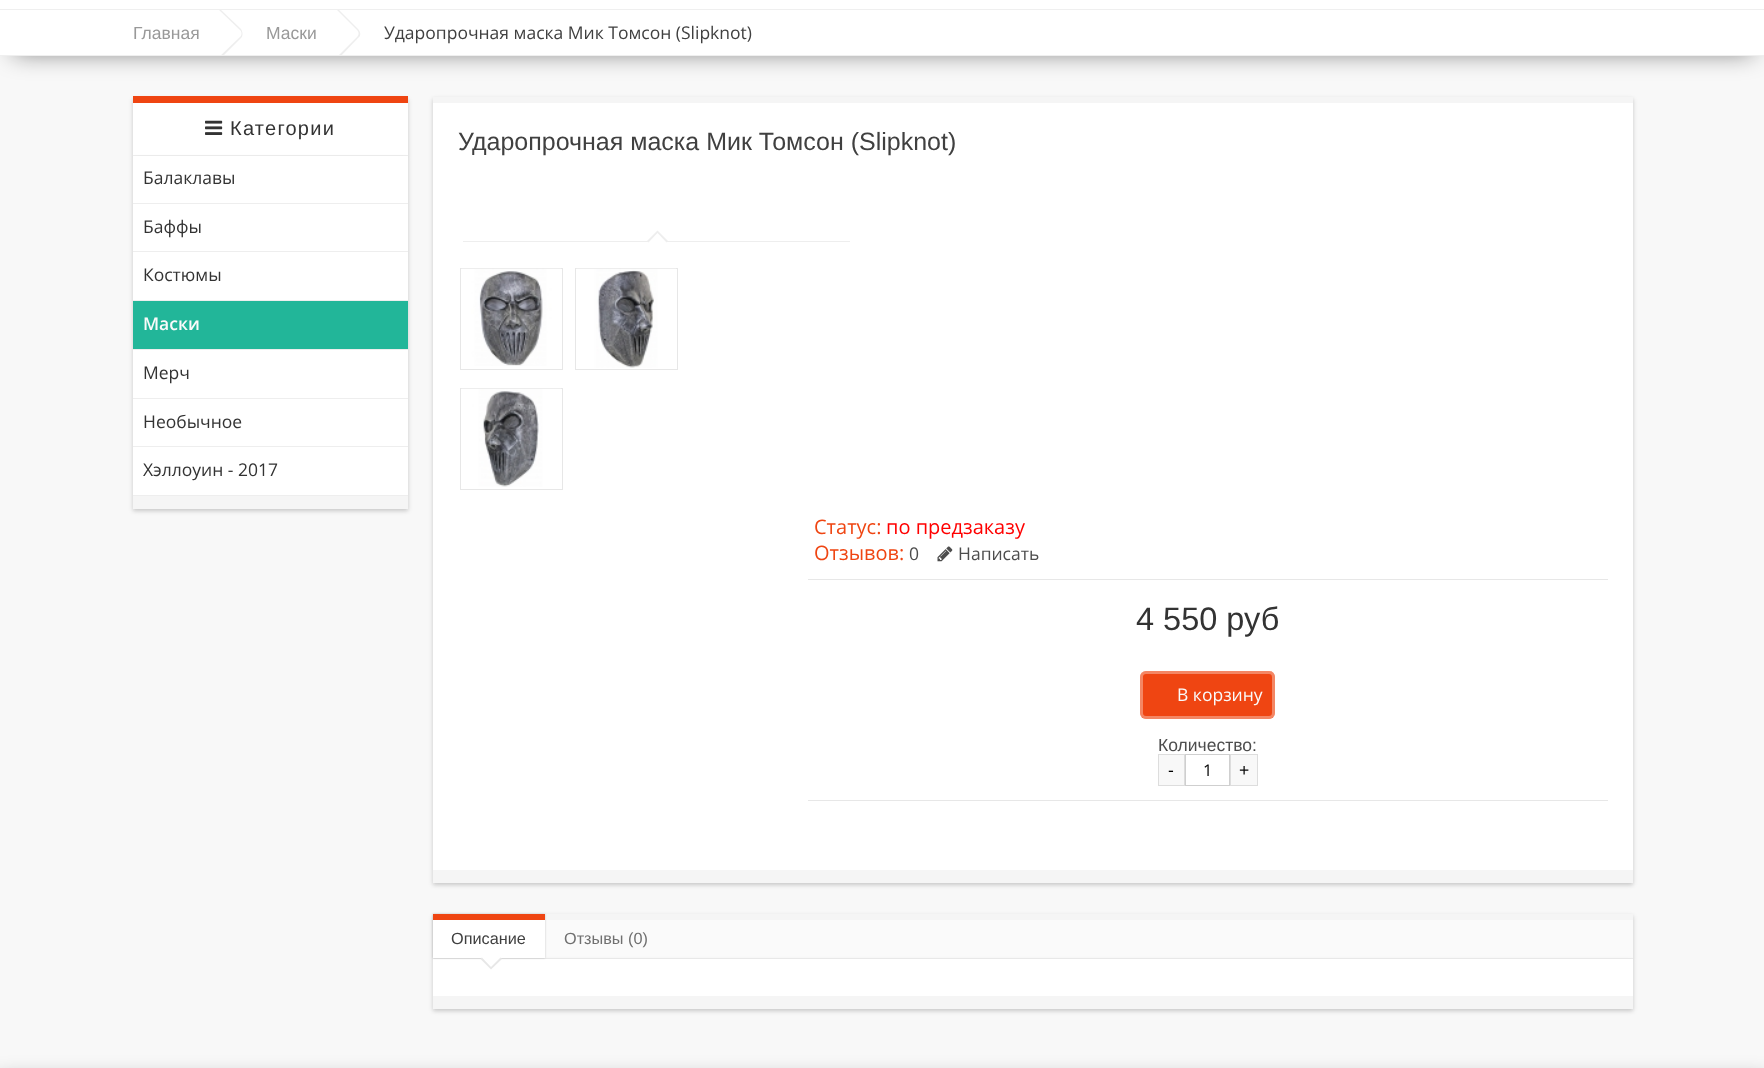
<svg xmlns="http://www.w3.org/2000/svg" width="1764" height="1068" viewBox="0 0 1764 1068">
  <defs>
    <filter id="blur1" x="-50%" y="-200%" width="200%" height="500%"><feGaussianBlur stdDeviation="12.5"/></filter>
    <clipPath id="clip1"><rect x="126" y="10" width="1513" height="45"/></clipPath>
    <filter id="blur2" x="-50%" y="-200%" width="200%" height="500%"><feGaussianBlur stdDeviation="2"/></filter>
    <filter id="blur3" x="-50%" y="-200%" width="200%" height="500%"><feGaussianBlur stdDeviation="1"/></filter>
  </defs>
  <rect width="100%" height="100%" fill="#f8f8f8"/>
  <rect x="13" y="30" width="1740" height="23" fill="#000000" fill-opacity="0.51" filter="url(#blur1)"/>
  <rect x="0" y="0" width="1764" height="9" fill="#ffffff"/>
  <rect x="0" y="10" width="1764" height="45" fill="#ffffff"/>
  <rect x="0" y="9" width="1764" height="1" fill="#efefef"/>
  <rect x="0" y="55" width="1764" height="1" fill="#efefef"/>
  <g clip-path="url(#clip1)">
    <path d="M221 10L241 29C243 32 243 36 241 38L221 58C219 60 215 60 212 58L193 38C190 36 190 32 193 29L212 10C215 7 219 7 221 10Z" fill="#eeeeee"/>
    <path d="M218 9L240 30C242 32 242 35 240 37L218 58C217 60 213 60 211 58L190 37C188 35 188 32 190 30L211 9C213 7 217 7 218 9Z" fill="#ffffff"/>
  </g>
  <text x="133" y="39" font-family="Liberation Sans" font-size="17.5" fill="#999999">Главная</text>
  <g clip-path="url(#clip1)">
    <path d="M339 10L358 29C361 32 361 36 358 38L339 58C337 60 333 60 330 58L311 38C308 36 308 32 311 29L330 10C333 7 337 7 339 10Z" fill="#eeeeee"/>
    <path d="M336 9L357 30C359 32 359 35 357 37L336 58C334 60 331 60 329 58L308 37C306 35 306 32 308 30L329 9C331 7 334 7 336 9Z" fill="#ffffff"/>
  </g>
  <text x="266" y="39" font-family="Liberation Sans" font-size="17.5" fill="#999999">Маски</text>
  <text x="384" y="39" font-family="Open Sans" font-size="17.5" fill="#404040">Ударопрочная маска Мик Томсон (Slipknot)</text>
  <rect x="133" y="99" width="275" height="60" fill="#000000" fill-opacity="0.2" filter="url(#blur2)"/>
  <rect x="133" y="103" width="275" height="52" fill="#ffffff"/>
  <rect x="133" y="96" width="275" height="7" fill="#ef4512"/>
  <rect x="133" y="155" width="275" height="1" fill="#eeeeee"/>
  <image x="205" y="120" width="18" height="15" href="img1.png"/>
  <text x="230" y="135" font-family="Liberation Sans" font-size="20" letter-spacing="1.25" fill="#333333">Категории</text>
  <rect x="133" y="159" width="275" height="352" fill="#000000" fill-opacity="0.2" filter="url(#blur2)"/>
  <rect x="133" y="156" width="275" height="339" fill="#ffffff"/>
  <rect x="133" y="496" width="275" height="13" fill="#f5f5f5"/>
  <rect x="133" y="203" width="275" height="1" fill="#eeeeee"/>
  <text x="143" y="184" font-family="Open Sans" font-size="17.5" fill="#333333">Балаклавы</text>
  <rect x="133" y="251" width="275" height="1" fill="#eeeeee"/>
  <text x="143" y="233" font-family="Open Sans" font-size="17.5" fill="#333333">Баффы</text>
  <text x="143" y="281" font-family="Open Sans" font-size="17.5" fill="#333333">Костюмы</text>
  <rect x="133" y="301" width="275" height="48" fill="#22b699"/>
  <rect x="133" y="300" width="275" height="1" fill="#eeeeee"/>
  <rect x="133" y="349" width="275" height="1" fill="#eeeeee"/>
  <text x="143" y="330" font-family="Open Sans" font-size="17.5" font-weight="600" fill="#fafafa">Маски</text>
  <rect x="133" y="398" width="275" height="1" fill="#eeeeee"/>
  <text x="143" y="379" font-family="Open Sans" font-size="17.5" fill="#333333">Мерч</text>
  <rect x="133" y="446" width="275" height="1" fill="#eeeeee"/>
  <text x="143" y="428" font-family="Open Sans" font-size="17.5" fill="#333333">Необычное</text>
  <rect x="133" y="495" width="275" height="1" fill="#eeeeee"/>
  <text x="143" y="476" font-family="Open Sans" font-size="17.5" fill="#333333">Хэллоуин - 2017</text>
  <rect x="433" y="99" width="1200" height="786" fill="#000000" fill-opacity="0.2" filter="url(#blur2)"/>
  <rect x="433" y="103" width="1200" height="767" fill="#ffffff"/>
  <rect x="433" y="97" width="1200" height="6" fill="#f5f5f5"/>
  <rect x="433" y="870" width="1200" height="13" fill="#f5f5f5"/>
  <text x="458" y="150" font-family="Liberation Sans" font-size="25" fill="#404040">Ударопрочная маска Мик Томсон (Slipknot)</text>
  <rect x="463" y="241" width="387" height="1" fill="#eeeeee"/>
  <path d="M657.5 230.5L668 241L657.5 252L647 241Z" fill="#eeeeee"/>
  <path d="M657.5 233L668 244L657.5 254.5L647 244Z" fill="#ffffff"/>
  <rect x="460.5" y="268.5" width="102" height="101" fill="none" stroke="#e7e7e7"/>
  <image x="461" y="268" width="100" height="98" href="img2.png"/>
  <rect x="575.5" y="268.5" width="102" height="101" fill="none" stroke="#e7e7e7"/>
  <image x="576" y="268" width="100" height="100" href="img3.png"/>
  <rect x="460.5" y="388.5" width="102" height="101" fill="none" stroke="#e7e7e7"/>
  <image x="461" y="388" width="100" height="99" href="img4.png"/>
  <rect x="808" y="579" width="800" height="1" fill="#e7e7e7"/>
  <text x="814" y="534" font-family="Open Sans" font-size="20" fill="#ef4512">Статус:</text>
  <text x="886" y="534" font-family="Open Sans" font-size="20" fill="#ff0000">по предзаказу</text>
  <text x="814" y="560" font-family="Open Sans" font-size="20" fill="#ef4512">Отзывов:</text>
  <text x="909" y="560" font-family="Open Sans" font-size="17.5" fill="#4d4d4d">0</text>
  <image x="937" y="546" width="16" height="16" href="img5.png"/>
  <text x="958" y="560" font-family="Open Sans" font-size="17.5" fill="#4d4d4d">Написать</text>
  <text x="1136" y="630" font-family="Liberation Sans" font-size="32.5" fill="#333333">4 550 руб</text>
  <rect x="808" y="800" width="800" height="1" fill="#e7e7e7"/>
  <rect x="1140" y="671" width="135" height="48" rx="6" fill="#ef4512"/>
  <rect x="1141.5" y="672.5" width="132" height="45" rx="4.5" fill="none" stroke="#ffffff" stroke-opacity="0.35" stroke-width="3"/>
  <text x="1177" y="701" font-family="Open Sans" font-size="17.5" fill="#fafafa">В корзину</text>
  <text x="1158" y="751" font-family="Liberation Sans" font-size="17.5" fill="#4d4d4d">Количество:</text>
  <rect x="1158.5" y="754.5" width="26" height="31" fill="#f8f8f8" stroke="#dddddd"/>
  <text x="1168" y="776" font-family="Liberation Sans" font-size="17.5" fill="#000000">-</text>
  <rect x="1185.5" y="754.5" width="44" height="31" fill="none" stroke="#cfcfcf"/>
  <text x="1203" y="776" font-family="Open Sans" font-size="16.25" fill="#000000">1</text>
  <rect x="1230.5" y="754.5" width="27" height="31" fill="#f8f8f8" stroke="#dddddd"/>
  <text x="1239" y="776" font-family="Liberation Sans" font-size="17.5" fill="#000000">+</text>
  <rect x="433" y="916" width="1200" height="45" fill="#000000" fill-opacity="0.2" filter="url(#blur2)"/>
  <rect x="545" y="920" width="1088" height="38" fill="#fafafa"/>
  <rect x="545" y="914" width="1088" height="6" fill="#f5f5f5"/>
  <rect x="433" y="958" width="1200" height="1" fill="#eeeeee"/>
  <rect x="433" y="961" width="1200" height="50" fill="#000000" fill-opacity="0.2" filter="url(#blur2)"/>
  <rect x="433" y="959" width="1200" height="37" fill="#ffffff"/>
  <rect x="433" y="914" width="112" height="44" fill="#000000" fill-opacity="0.2" filter="url(#blur3)"/>
  <rect x="433" y="920" width="112" height="38" fill="#ffffff"/>
  <rect x="433" y="914" width="112" height="6" fill="#ef4512"/>
  <text x="451" y="944" font-family="Liberation Sans" font-size="16.25" fill="#404040">Описание</text>
  <path d="M491 948L502 959L491 969.5L480.5 959Z" fill="#e7e7e7"/>
  <path d="M491 945.5L502 956L491 967L480.5 956Z" fill="#ffffff"/>
  <text x="564" y="944" font-family="Liberation Sans" font-size="16.25" fill="#707070">Отзывы (0)</text>
  <rect x="433" y="996" width="1200" height="13" fill="#f5f5f5"/>
  <rect x="-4" y="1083" width="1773" height="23" fill="#000000" fill-opacity="0.51" filter="url(#blur1)"/>
</svg>
